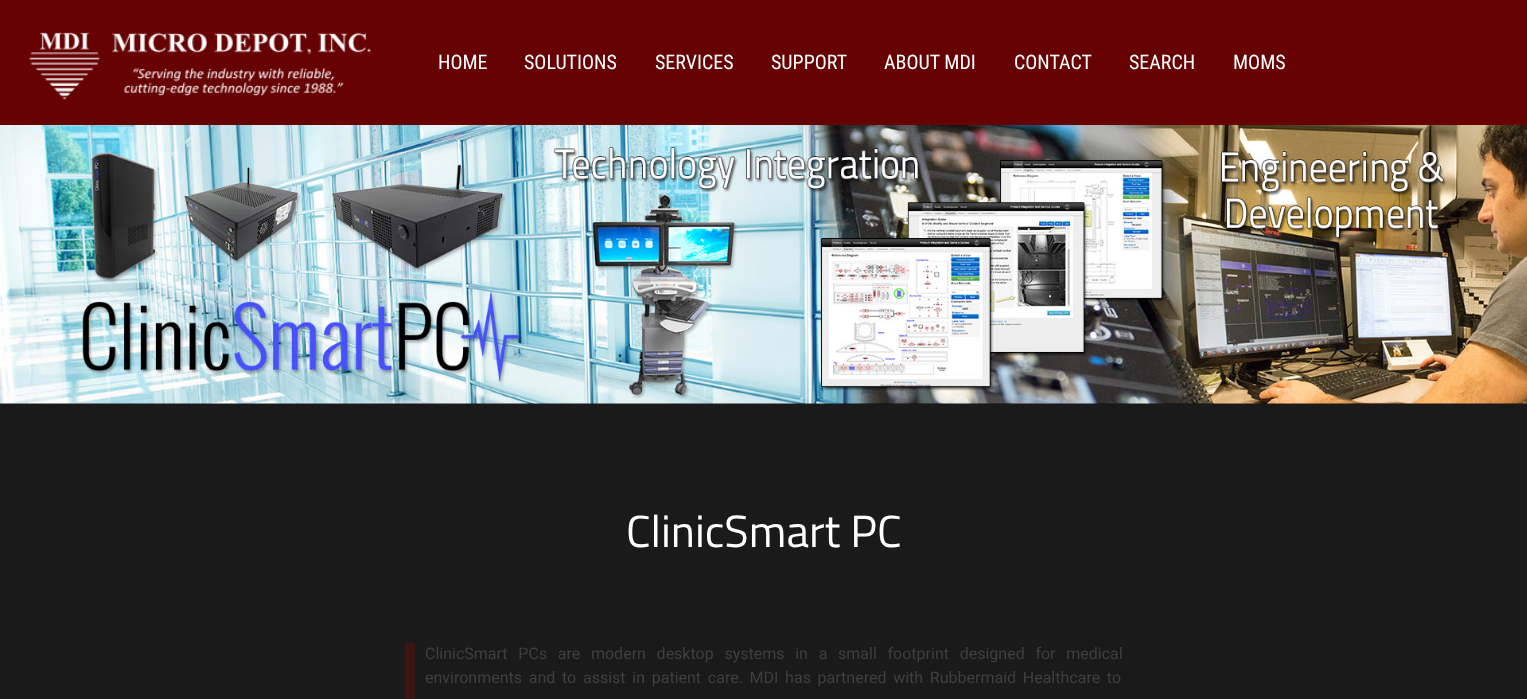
<svg xmlns="http://www.w3.org/2000/svg" width="1527" height="699" viewBox="0 0 1527 699">
  <rect width="100%" height="100%" fill="#000000"/>
  <rect x="0" y="0" width="1527" height="125" fill="#660203"/>
  <image x="29" y="32" width="342" height="68" href="img1.png"/>
  <text x="438" y="69" font-family="Roboto Condensed" font-size="20" fill="#ffffff">HOME</text>
  <text x="524" y="69" font-family="Roboto Condensed" font-size="20" fill="#ffffff">SOLUTIONS</text>
  <text x="655" y="69" font-family="Roboto Condensed" font-size="20" fill="#ffffff">SERVICES</text>
  <text x="771" y="69" font-family="Roboto Condensed" font-size="20" fill="#ffffff">SUPPORT</text>
  <text x="884" y="69" font-family="Roboto Condensed" font-size="20" fill="#ffffff">ABOUT MDI</text>
  <text x="1014" y="69" font-family="Roboto Condensed" font-size="20" fill="#ffffff">CONTACT</text>
  <text x="1129" y="69" font-family="Roboto Condensed" font-size="20" fill="#ffffff">SEARCH</text>
  <text x="1233" y="69" font-family="Roboto Condensed" font-size="20" fill="#ffffff">MOMS</text>
  <image x="0" y="125" width="1527" height="279" href="img2.png"/>
  <rect x="0" y="404" width="1527" height="295" fill="#1a1a1a"/>
  <text x="626" y="547" font-family="Titillium Web" font-size="45" fill="#ffffff">ClinicSmart PC</text>
  <rect x="405" y="643" width="10" height="56" fill="#3d1313"/>
  <text x="425" y="659" word-spacing="6.75" font-family="Roboto" font-size="16" fill="#3f3f3f">ClinicSmart PCs are modern desktop systems in a small footprint designed for medical</text>
  <text x="425" y="683" word-spacing="2.75" font-family="Roboto" font-size="16" fill="#3f3f3f">environments and to assist in patient care. MDI has partnered with Rubbermaid Healthcare to</text>
</svg>
